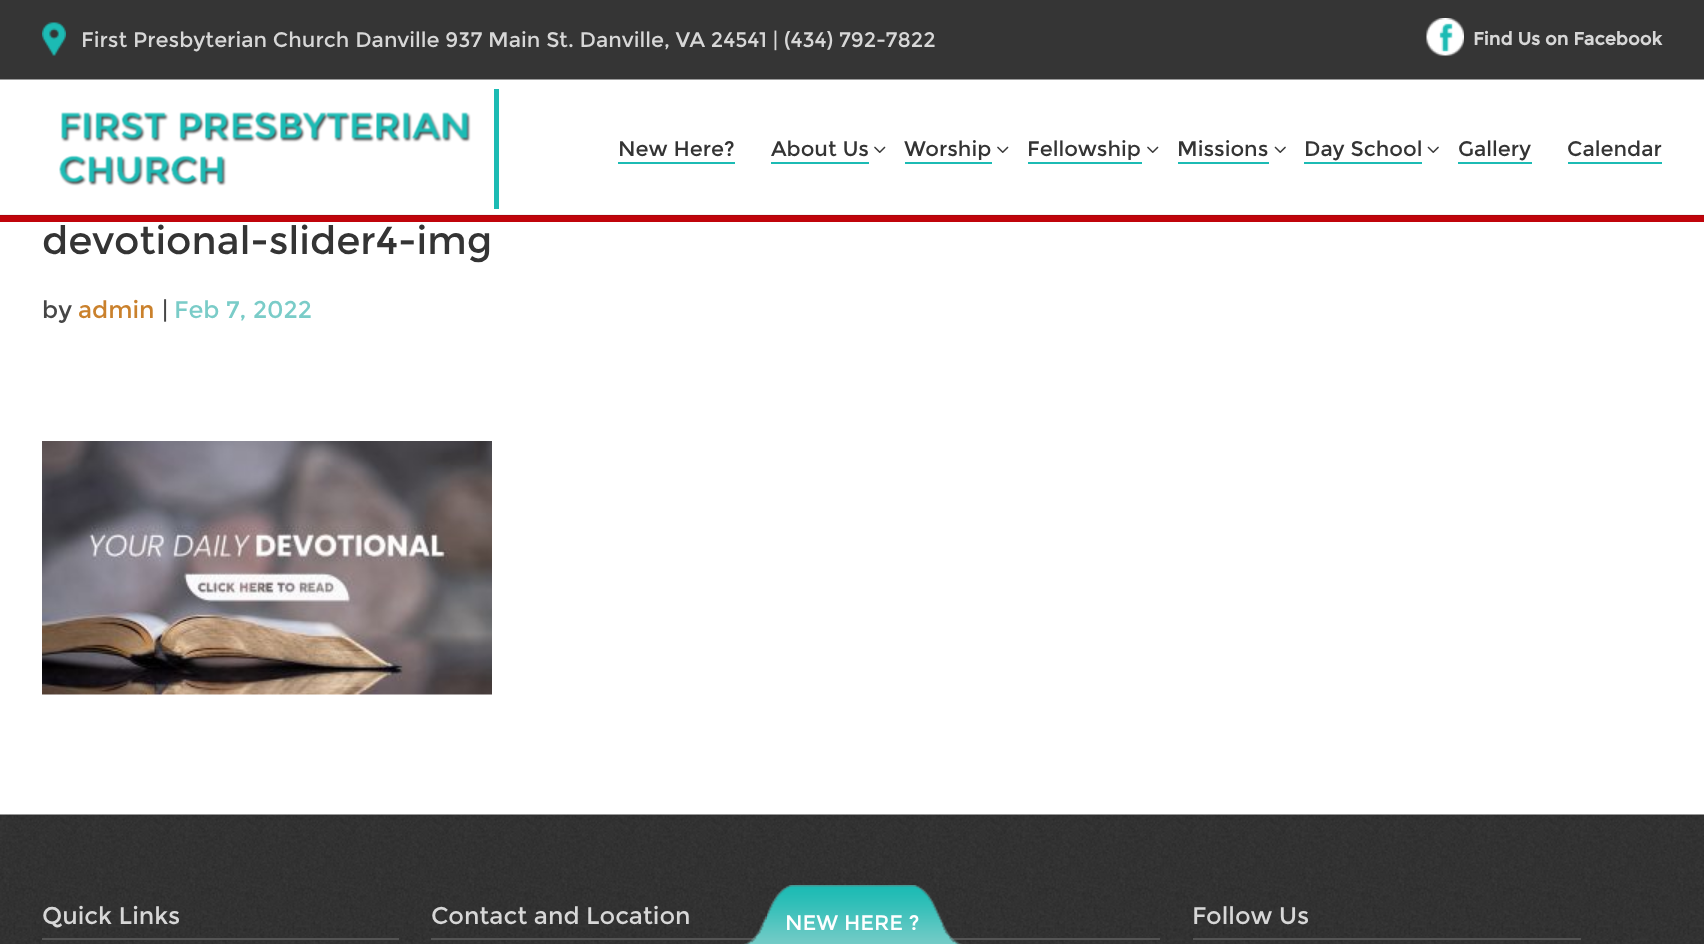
<svg xmlns="http://www.w3.org/2000/svg" width="1704" height="944" viewBox="0 0 1704 944">
  <rect width="100%" height="100%" fill="#ffffff"/>
  <rect x="0" y="214" width="1704" height="1" fill="#f3f3f3"/>
  <rect x="0" y="0" width="1704" height="79" fill="#353535"/>
  <rect x="0" y="79" width="1704" height="1" fill="#9a9a9a"/>
  <image x="42" y="22" width="24" height="34" href="img1.png"/>
  <text x="81" y="47" font-family="Montserrat" font-size="21" fill="#d7d7d7">First Presbyterian Church Danville 937 Main St. Danville, VA 24541 | (434) 792-7822</text>
  <image x="1426" y="18" width="38" height="38" href="img2.png"/>
  <text x="1473" y="45" font-family="Montserrat" font-size="18" font-weight="bold" fill="#d7d7d7">Find Us on Facebook</text>
  <rect x="494" y="89" width="5" height="120" fill="#1cbbb4"/>
  <image x="59" y="111" width="412" height="75" href="img3.png"/>
  <rect x="618" y="162" width="117" height="2" fill="#1cbbb4"/>
  <text x="618" y="156" font-family="Montserrat" font-size="21" fill="#343434">New Here?</text>
  <rect x="771" y="162" width="98" height="2" fill="#1cbbb4"/>
  <text x="771" y="156" font-family="Montserrat" font-size="21" fill="#343434">About Us</text>
  <image x="874" y="146" width="12" height="7" href="img4.png"/>
  <rect x="905" y="162" width="87" height="2" fill="#1cbbb4"/>
  <text x="904" y="156" font-family="Montserrat" font-size="21" fill="#343434">Worship</text>
  <image x="997" y="146" width="12" height="7" href="img4.png"/>
  <rect x="1028" y="162" width="114" height="2" fill="#1cbbb4"/>
  <text x="1027" y="156" font-family="Montserrat" font-size="21" fill="#343434">Fellowship</text>
  <image x="1147" y="146" width="12" height="7" href="img4.png"/>
  <rect x="1178" y="162" width="91" height="2" fill="#1cbbb4"/>
  <text x="1177" y="156" font-family="Montserrat" font-size="21" fill="#343434">Missions</text>
  <image x="1274" y="146" width="12" height="7" href="img5.png"/>
  <rect x="1304" y="162" width="118" height="2" fill="#1cbbb4"/>
  <text x="1304" y="156" font-family="Montserrat" font-size="21" fill="#343434">Day School</text>
  <image x="1427" y="146" width="12" height="7" href="img5.png"/>
  <rect x="1458" y="162" width="74" height="2" fill="#1cbbb4"/>
  <text x="1458" y="156" font-family="Montserrat" font-size="21" fill="#343434">Gallery</text>
  <rect x="1568" y="162" width="94" height="2" fill="#1cbbb4"/>
  <text x="1567" y="156" font-family="Montserrat" font-size="21" fill="#343434">Calendar</text>
  <rect x="0" y="216" width="1704" height="6" fill="#c0040b"/>
  <rect x="0" y="215" width="1704" height="1" fill="#ad040a"/>
  <text x="42" y="254" font-family="Montserrat" font-size="39" fill="#343434">devotional-slider4-img</text>
  <text x="42" y="318" font-family="Montserrat" font-size="24" fill="#464646">by</text>
  <text x="78" y="318" font-family="Montserrat" font-size="24" fill="#ca812c">admin</text>
  <text x="162" y="318" font-family="Montserrat" font-size="24" fill="#464646">|</text>
  <text x="174" y="318" font-family="Montserrat" font-size="24" fill="#7accc8">Feb 7, 2022</text>
  <image x="42" y="441" width="450" height="254" href="img6.png"/>
  <image x="0" y="814" width="1704" height="130" href="img7.png"/>
  <rect x="42" y="938" width="357" height="2" fill="#545454"/>
  <text x="42" y="924" font-family="Montserrat" font-size="24" fill="#d7d7d7">Quick Links</text>
  <rect x="431" y="938" width="729" height="2" fill="#545454"/>
  <text x="431" y="924" font-family="Montserrat" font-size="24" fill="#d7d7d7">Contact and Location</text>
  <rect x="1193" y="938" width="388" height="2" fill="#545454"/>
  <text x="1192" y="924" font-family="Montserrat" font-size="24" fill="#d7d7d7">Follow Us</text>
  <image x="744" y="885" width="218" height="59" href="img8.png"/>
  <text x="785" y="930" font-family="Montserrat" font-size="21" fill="#ffffff">NEW HERE ?</text>
</svg>
